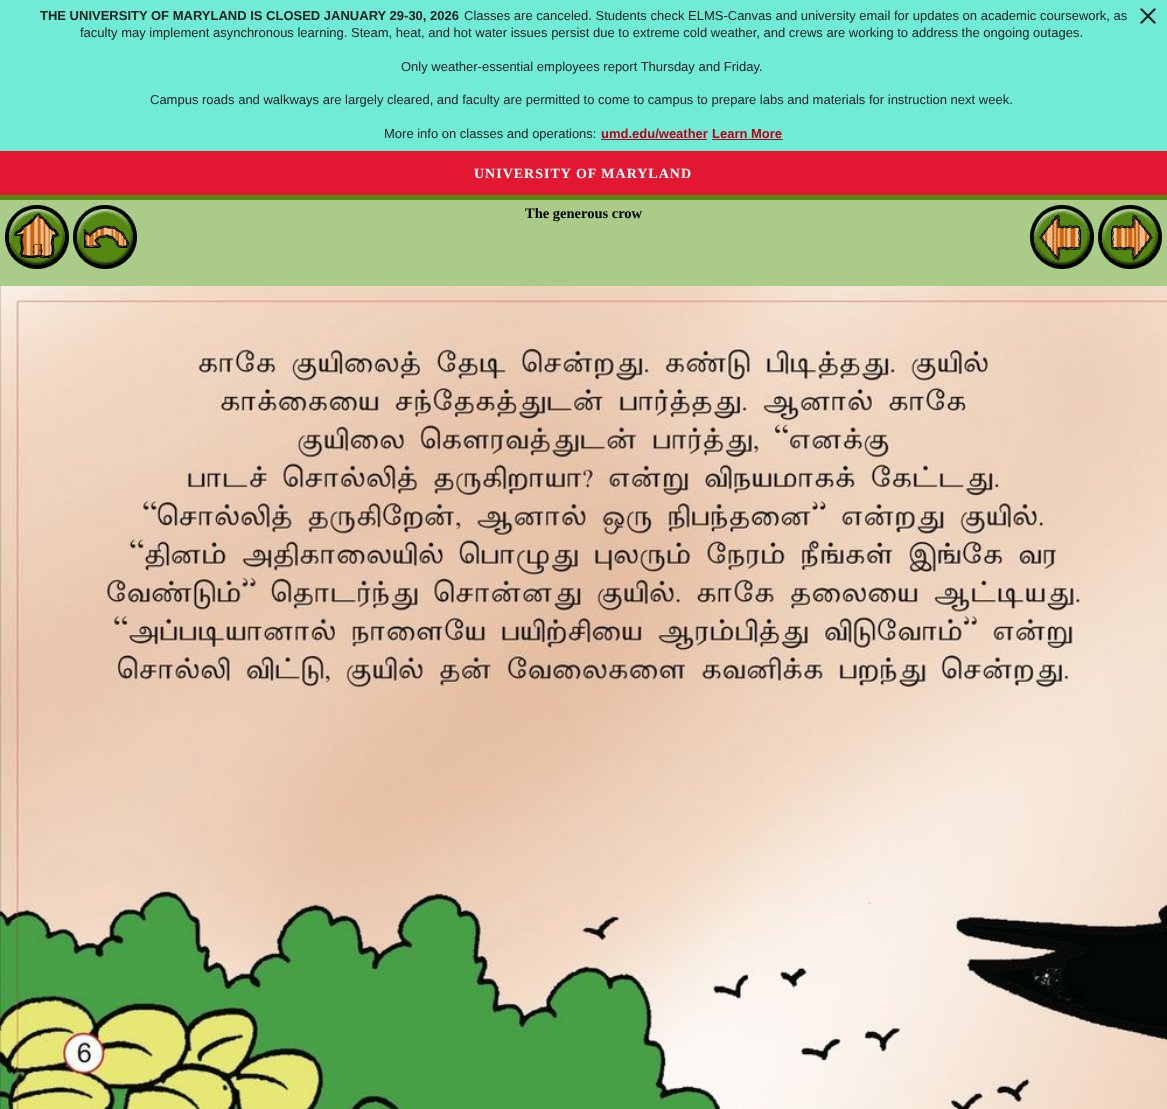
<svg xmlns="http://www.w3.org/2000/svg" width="1167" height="1109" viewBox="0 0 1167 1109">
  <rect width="100%" height="100%" fill="#aacc88"/>
  <rect x="0" y="0" width="1167" height="151" fill="#70ebd6"/>
  <text x="40" y="20" font-family="Liberation Sans" font-size="13" font-weight="bold" fill="#222222">THE UNIVERSITY OF MARYLAND IS CLOSED JANUARY 29-30, 2026</text>
  <text x="464" y="20" font-family="Liberation Sans" font-size="13" fill="#222222">Classes are canceled. Students check ELMS-Canvas and university email for updates on academic coursework, as</text>
  <path d="M1156 22.5L1154.5 24L1140 9.5L1141.5 8Z" fill="#222222"/>
  <path d="M1154.5 8L1156 9.5L1141.5 24L1140 22.5Z" fill="#222222"/>
  <text x="80" y="37" font-family="Liberation Sans" font-size="13" fill="#222222">faculty may implement asynchronous learning. Steam, heat, and hot water issues persist due to extreme cold weather, and crews are working to address the ongoing outages.</text>
  <text x="401" y="71" font-family="Liberation Sans" font-size="13" fill="#222222">Only weather-essential employees report Thursday and Friday.</text>
  <text x="150" y="104" font-family="Liberation Sans" font-size="13" fill="#222222">Campus roads and walkways are largely cleared, and faculty are permitted to come to campus to prepare labs and materials for instruction next week.</text>
  <text x="384" y="138" font-family="Liberation Sans" font-size="13" fill="#222222">More info on classes and operations:</text>
  <text x="601" y="138" font-family="Liberation Sans" font-size="13" font-weight="bold" fill="#bb0019">umd.edu/weather</text>
  <rect x="601" y="139" width="106" height="1" fill="#bb0019"/>
  <text x="712" y="138" font-family="Liberation Sans" font-size="13" font-weight="bold" fill="#bb0019">Learn More</text>
  <rect x="712" y="139" width="71" height="1" fill="#bb0019"/>
  <rect x="0" y="151" width="1167" height="44" fill="#e21833"/>
  <text x="474" y="178" font-family="Liberation Serif" font-size="14" font-weight="bold" letter-spacing="1" fill="#ffffff">UNIVERSITY OF MARYLAND</text>
  <rect x="0" y="195" width="1167" height="5" fill="#558811"/>
  <image x="5" y="205" width="64" height="64" href="img1.png"/>
  <image x="73" y="205" width="64" height="64" href="img2.png"/>
  <text x="525" y="218" font-family="Liberation Serif" font-size="14.5" font-weight="bold" fill="#000000">The generous crow</text>
  <image x="1030" y="205" width="64" height="64" href="img3.png"/>
  <image x="1098" y="205" width="64" height="64" href="img4.png"/>
  <image x="0" y="286" width="1167" height="823" href="img5.png"/>
</svg>
